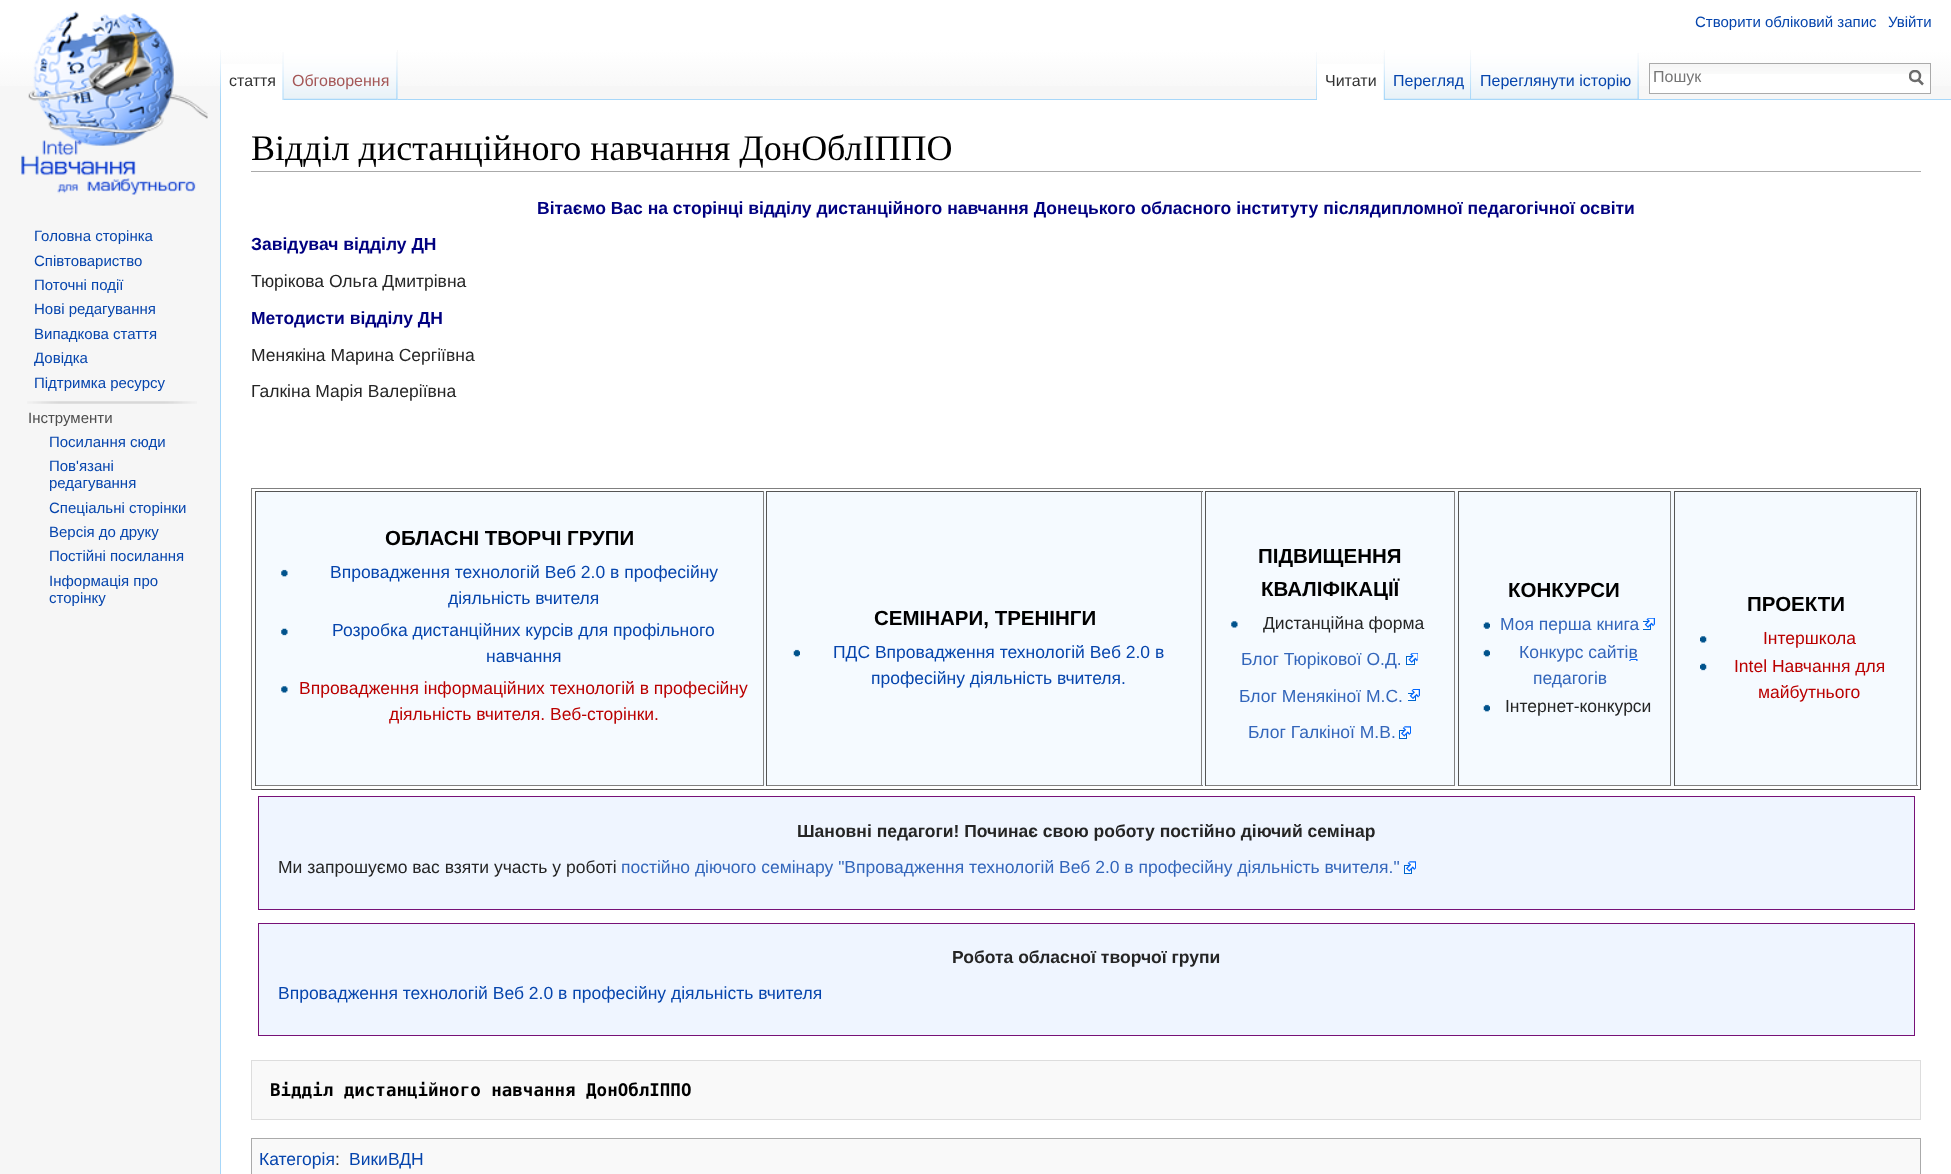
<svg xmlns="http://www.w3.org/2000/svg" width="1951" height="1174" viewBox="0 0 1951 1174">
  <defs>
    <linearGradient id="g1" gradientUnits="userSpaceOnUse" x1="976" y1="0" x2="976" y2="100"><stop offset="0.5" stop-color="#ffffff"/><stop offset="1" stop-color="#f6f6f6"/></linearGradient>
    <clipPath id="clip1"><rect x="1909" y="70" width="15" height="16"/></clipPath>
  </defs>
  <rect width="100%" height="100%" fill="#f6f6f6"/>
  <rect x="0" y="0" width="1951" height="86" fill="url(#g1)"/>
  <text x="1695" y="27" font-family="Liberation Sans" font-size="15" fill="#0645ad">Створити обліковий запис</text>
  <text x="1888" y="27" font-family="Liberation Sans" font-size="15" fill="#0645ad">Увійти</text>
  <image x="220" y="50" width="1" height="49" href="img1.png"/>
  <rect x="221" y="64" width="63" height="36" fill="#ffffff"/>
  <image x="282" y="52" width="2" height="48" href="img2.png"/>
  <text x="229" y="86" font-family="Liberation Sans" font-size="16" fill="#333333">стаття</text>
  <rect x="397" y="50" width="1" height="50" fill="#f3f3f3"/>
  <image x="283" y="50" width="115" height="50" href="img3.png"/>
  <image x="396" y="52" width="2" height="48" href="img4.png"/>
  <text x="292" y="86" font-family="Liberation Sans" font-size="16" fill="#a55858">Обговорення</text>
  <image x="1316" y="52" width="1" height="47" href="img5.png"/>
  <image x="1638" y="52" width="1" height="47" href="img5.png"/>
  <rect x="398" y="99" width="1553" height="1" fill="#a7d7f9"/>
  <rect x="1317" y="64" width="67" height="36" fill="#ffffff"/>
  <image x="1383" y="50" width="2" height="50" href="img6.png"/>
  <text x="1325" y="86" font-family="Liberation Sans" font-size="16" fill="#333333">Читати</text>
  <image x="1385" y="50" width="87" height="50" href="img7.png"/>
  <image x="1470" y="50" width="2" height="49" href="img8.png"/>
  <text x="1393" y="86" font-family="Liberation Sans" font-size="16" fill="#0645ad">Перегляд</text>
  <image x="1471" y="50" width="168" height="50" href="img9.png"/>
  <image x="1637" y="53" width="2" height="47" href="img10.png"/>
  <text x="1480" y="86" font-family="Liberation Sans" font-size="16" fill="#0645ad">Переглянути історію</text>
  <rect x="1650" y="74" width="280" height="19" fill="#ffffff"/>
  <image x="1650" y="64" width="280" height="10" href="img11.png"/>
  <rect x="1649.5" y="63.5" width="281" height="30" fill="none" stroke="#aaaaaa"/>
  <text x="1653" y="82" font-family="Liberation Sans" font-size="16" fill="#757575">Пошук</text>
  <path d="M1923 84.5L1918 79.5" fill="none" stroke="#6c6c6c" stroke-width="2.5"/>
  <g clip-path="url(#clip1)">
    <circle cx="1915" cy="76" r="5" fill="none" stroke="#6c6c6c" stroke-width="2.5"/>
  </g>
  <image x="21" y="11" width="187" height="184" href="img12.png"/>
  <text x="34" y="241" font-family="Liberation Sans" font-size="15" fill="#0645ad">Головна сторінка</text>
  <text x="34" y="266" font-family="Liberation Sans" font-size="15" fill="#0645ad">Співтовариство</text>
  <text x="34" y="290" font-family="Liberation Sans" font-size="15" fill="#0645ad">Поточні події</text>
  <text x="34" y="314" font-family="Liberation Sans" font-size="15" fill="#0645ad">Нові редагування</text>
  <text x="34" y="339" font-family="Liberation Sans" font-size="15" fill="#0645ad">Випадкова стаття</text>
  <text x="34" y="363" font-family="Liberation Sans" font-size="15" fill="#0645ad">Довідка</text>
  <text x="34" y="388" font-family="Liberation Sans" font-size="15" fill="#0645ad">Підтримка ресурсу</text>
  <image x="27" y="401" width="170" height="3" href="img13.png"/>
  <text x="28" y="423" font-family="Liberation Sans" font-size="15" fill="#4d4d4d">Інструменти</text>
  <text x="49" y="447" font-family="Liberation Sans" font-size="15" fill="#0645ad">Посилання сюди</text>
  <text x="49" y="471" font-family="Liberation Sans" font-size="15" fill="#0645ad">Пов'язані</text>
  <text x="49" y="488" font-family="Liberation Sans" font-size="15" fill="#0645ad">редагування</text>
  <text x="49" y="513" font-family="Liberation Sans" font-size="15" fill="#0645ad">Спеціальні сторінки</text>
  <text x="49" y="537" font-family="Liberation Sans" font-size="15" fill="#0645ad">Версія до друку</text>
  <text x="49" y="561" font-family="Liberation Sans" font-size="15" fill="#0645ad">Постійні посилання</text>
  <text x="49" y="586" font-family="Liberation Sans" font-size="15" fill="#0645ad">Інформація про</text>
  <text x="49" y="603" font-family="Liberation Sans" font-size="15" fill="#0645ad">сторінку</text>
  <rect x="221" y="100" width="1730" height="1074" fill="#ffffff"/>
  <rect x="220" y="99" width="1" height="1075" fill="#a7d7f9"/>
  <rect x="251" y="171" width="1670" height="1" fill="#aaaaaa"/>
  <text x="251" y="160" font-family="Liberation Serif" font-size="36" fill="#000000">Відділ дистанційного навчання ДонОблІППО</text>
  <text x="537" y="214" font-family="Liberation Sans" font-size="17.5" font-weight="bold" fill="#000080">Вітаємо Вас на сторінці відділу дистанційного навчання Донецького обласного інституту післядипломної педагогічної освіти</text>
  <text x="251" y="250" font-family="Liberation Sans" font-size="17.5" font-weight="bold" fill="#000080">Завідувач відділу ДН</text>
  <text x="251" y="287" font-family="Liberation Sans" font-size="17.5" fill="#252525">Тюрікова Ольга Дмитрівна</text>
  <text x="251" y="324" font-family="Liberation Sans" font-size="17.5" font-weight="bold" fill="#000080">Методисти відділу ДН</text>
  <text x="251" y="361" font-family="Liberation Sans" font-size="17.5" fill="#252525">Менякіна Марина Сергіївна</text>
  <text x="251" y="397" font-family="Liberation Sans" font-size="17.5" fill="#252525">Галкіна Марія Валеріївна</text>
  <rect x="251" y="488" width="1670" height="1" fill="#808080"/>
  <rect x="1920" y="488" width="1" height="302" fill="#555555"/>
  <rect x="251" y="789" width="1670" height="1" fill="#555555"/>
  <rect x="251" y="488" width="1" height="302" fill="#808080"/>
  <rect x="256" y="491" width="1662" height="295" fill="#f5faff"/>
  <rect x="255" y="491" width="509" height="1" fill="#555555"/>
  <rect x="763" y="491" width="1" height="295" fill="#808080"/>
  <rect x="255" y="785" width="509" height="1" fill="#808080"/>
  <rect x="255" y="491" width="1" height="295" fill="#555555"/>
  <text x="385" y="545" font-family="Liberation Sans" font-size="20.5" font-weight="bold" fill="#000000">ОБЛАСНІ ТВОРЧІ ГРУПИ</text>
  <image x="281" y="569" width="7" height="8" href="img14.png"/>
  <text x="330" y="578" font-family="Liberation Sans" font-size="17.5" fill="#0645ad">Впровадження технологій Веб 2.0 в професійну</text>
  <text x="448" y="604" font-family="Liberation Sans" font-size="17.5" fill="#0645ad">діяльність вчителя</text>
  <image x="281" y="628" width="7" height="8" href="img15.png"/>
  <text x="332" y="636" font-family="Liberation Sans" font-size="17.5" fill="#0645ad">Розробка дистанційних курсів для профільного</text>
  <text x="486" y="662" font-family="Liberation Sans" font-size="17.5" fill="#0645ad">навчання</text>
  <image x="281" y="686" width="7" height="7" href="img16.png"/>
  <text x="299" y="694" font-family="Liberation Sans" font-size="17.5" fill="#ba0000">Впровадження інформаційних технологій в професійну</text>
  <text x="389" y="720" font-family="Liberation Sans" font-size="17.5" fill="#ba0000">діяльність вчителя. Веб-сторінки.</text>
  <rect x="766" y="491" width="437" height="1" fill="#555555"/>
  <rect x="1201" y="491" width="1" height="295" fill="#808080"/>
  <rect x="766" y="785" width="437" height="1" fill="#808080"/>
  <rect x="766" y="491" width="1" height="295" fill="#555555"/>
  <text x="874" y="625" font-family="Liberation Sans" font-size="20.5" font-weight="bold" fill="#000000">СЕМІНАРИ, ТРЕНІНГИ</text>
  <image x="793" y="649" width="7" height="8" href="img17.png"/>
  <text x="833" y="658" font-family="Liberation Sans" font-size="17.5" fill="#0645ad">ПДС Впровадження технологій Веб 2.0 в</text>
  <text x="871" y="684" font-family="Liberation Sans" font-size="17.5" fill="#0645ad">професійну діяльність вчителя.</text>
  <rect x="1205" y="491" width="250" height="1" fill="#555555"/>
  <rect x="1454" y="491" width="1" height="295" fill="#808080"/>
  <rect x="1205" y="785" width="250" height="1" fill="#808080"/>
  <rect x="1205" y="491" width="1" height="295" fill="#555555"/>
  <text x="1258" y="563" font-family="Liberation Sans" font-size="20.5" font-weight="bold" fill="#000000">ПІДВИЩЕННЯ</text>
  <text x="1261" y="596" font-family="Liberation Sans" font-size="20.5" font-weight="bold" fill="#000000">КВАЛІФІКАЦІЇ</text>
  <image x="1231" y="621" width="7" height="7" href="img16.png"/>
  <text x="1263" y="629" font-family="Liberation Sans" font-size="17.5" fill="#252525">Дистанційна форма</text>
  <text x="1241" y="665" font-family="Liberation Sans" font-size="17.5" fill="#3366bb">Блог Тюрікової О.Д.</text>
  <image x="1406" y="653" width="12" height="12" href="img18.png"/>
  <text x="1239" y="702" font-family="Liberation Sans" font-size="17.5" fill="#3366bb">Блог Менякіної М.С.</text>
  <image x="1408" y="689" width="12" height="12" href="img19.png"/>
  <text x="1248" y="738" font-family="Liberation Sans" font-size="17.5" fill="#3366bb">Блог Галкіної М.В.</text>
  <image x="1399" y="726" width="12" height="13" href="img20.png"/>
  <rect x="1458" y="491" width="213" height="1" fill="#555555"/>
  <rect x="1670" y="491" width="1" height="295" fill="#808080"/>
  <rect x="1458" y="785" width="213" height="1" fill="#808080"/>
  <rect x="1458" y="491" width="1" height="295" fill="#555555"/>
  <text x="1508" y="597" font-family="Liberation Sans" font-size="20.5" font-weight="bold" fill="#000000">КОНКУРСИ</text>
  <image x="1483" y="622" width="7" height="7" href="img21.png"/>
  <text x="1500" y="630" font-family="Liberation Sans" font-size="17.5" fill="#3366bb">Моя перша книга</text>
  <image x="1643" y="618" width="12" height="12" href="img22.png"/>
  <image x="1483" y="649" width="7" height="8" href="img17.png"/>
  <image x="1629" y="659" width="9" height="2" href="img23.png"/>
  <text x="1519" y="658" font-family="Liberation Sans" font-size="17.5" fill="#3366bb">Конкурс сайтів</text>
  <text x="1533" y="684" font-family="Liberation Sans" font-size="17.5" fill="#3366bb">педагогів</text>
  <image x="1483" y="704" width="7" height="8" href="img17.png"/>
  <text x="1505" y="712" font-family="Liberation Sans" font-size="17.5" fill="#252525">Інтернет-конкурси</text>
  <rect x="1674" y="491" width="244" height="1" fill="#555555"/>
  <rect x="1916" y="491" width="1" height="295" fill="#808080"/>
  <rect x="1674" y="785" width="244" height="1" fill="#808080"/>
  <rect x="1674" y="491" width="1" height="295" fill="#555555"/>
  <text x="1747" y="611" font-family="Liberation Sans" font-size="20.5" font-weight="bold" fill="#000000">ПРОЕКТИ</text>
  <image x="1700" y="636" width="7" height="7" href="img24.png"/>
  <text x="1763" y="644" font-family="Liberation Sans" font-size="17.5" fill="#ba0000">Інтершкола</text>
  <image x="1700" y="663" width="7" height="8" href="img25.png"/>
  <text x="1734" y="672" font-family="Liberation Sans" font-size="17.5" fill="#ba0000">Intel Навчання для</text>
  <text x="1758" y="698" font-family="Liberation Sans" font-size="17.5" fill="#ba0000">майбутнього</text>
  <rect x="258.5" y="796.5" width="1656" height="113" fill="#eff5ff" stroke="#771177"/>
  <text x="797" y="837" font-family="Liberation Sans" font-size="17.5" font-weight="bold" fill="#252525">Шановні педагоги! Починає свою роботу постійно діючий семінар</text>
  <text x="278" y="873" font-family="Liberation Sans" font-size="17.5" fill="#252525">Ми запрошуємо вас взяти участь у роботі</text>
  <text x="621" y="873" font-family="Liberation Sans" font-size="17.5" fill="#3366bb">постійно діючого семінару "Впровадження технологій Веб 2.0 в професійну діяльність вчителя."</text>
  <image x="1404" y="861" width="12" height="13" href="img26.png"/>
  <rect x="258.5" y="923.5" width="1656" height="112" fill="#eff5ff" stroke="#771177"/>
  <text x="952" y="963" font-family="Liberation Sans" font-size="17.5" font-weight="bold" fill="#252525">Робота обласної творчої групи</text>
  <text x="278" y="999" font-family="Liberation Sans" font-size="17.5" fill="#0645ad">Впровадження технологій Веб 2.0 в професійну діяльність вчителя</text>
  <rect x="251.5" y="1060.5" width="1669" height="59" fill="#f9f9f9" stroke="#dddddd"/>
  <text x="270" y="1096" font-family="DejaVu Sans Mono" font-size="17.5" font-weight="bold" fill="#000000">Відділ дистанційного навчання ДонОблІППО</text>
  <rect x="251.5" y="1138.5" width="1669" height="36" fill="#f9f9f9" stroke="#aaaaaa"/>
  <text x="259" y="1165" font-family="Liberation Sans" font-size="17.5" fill="#0645ad">Категорія</text>
  <text x="335" y="1165" font-family="Liberation Sans" font-size="17.5" fill="#252525">:</text>
  <text x="349" y="1165" font-family="Liberation Sans" font-size="17.5" fill="#0645ad">ВикиВДН</text>
</svg>
